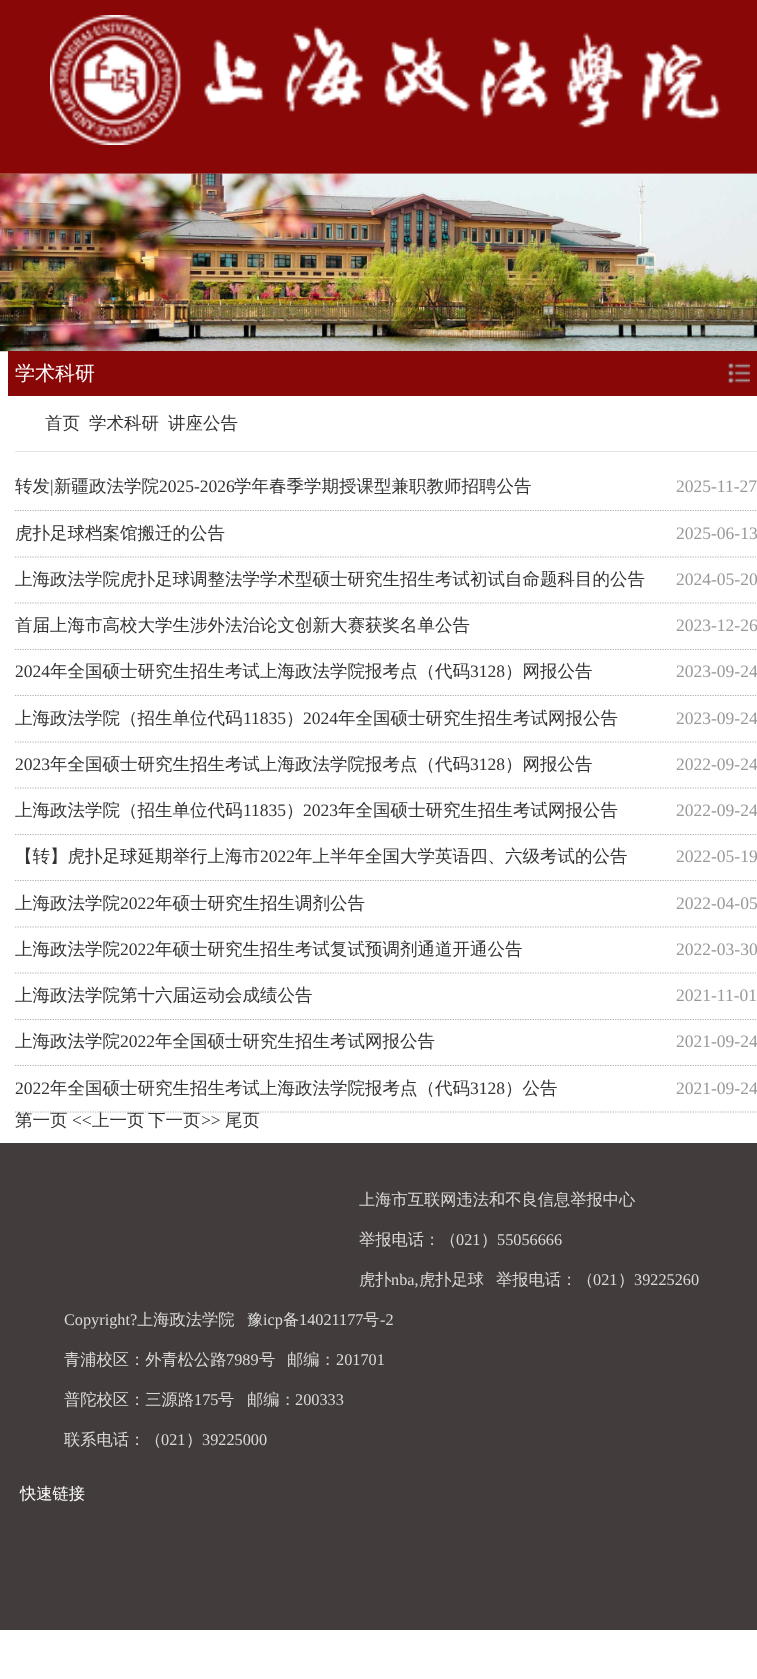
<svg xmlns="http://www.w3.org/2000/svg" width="757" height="1679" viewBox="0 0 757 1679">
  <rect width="100%" height="100%" fill="#ffffff"/>
  <rect x="0" y="0" width="757" height="173" fill="#8a0707"/>
  <rect x="0" y="173" width="757" height="1" fill="#a03d3d"/>
  <image x="50" y="15" width="671" height="130" href="img1.png"/>
  <image x="0" y="173" width="757" height="179" href="img2.png"/>
  <rect x="8" y="351" width="749" height="45" fill="#890707"/>
  <text x="15" y="380" font-family="WenQuanYi Zen Hei" font-size="20" font-weight="500" fill="#ffffff">学术科研</text>
  <image x="728" y="363" width="22" height="20" href="img3.png"/>
  <rect x="15" y="451" width="742" height="1" fill="#e5e5e5"/>
  <text x="45" y="429" font-family="WenQuanYi Zen Hei" font-size="17.5" font-weight="500" fill="#333333">首页</text>
  <text x="89" y="429" font-family="WenQuanYi Zen Hei" font-size="17.5" font-weight="500" fill="#333333">学术科研</text>
  <text x="168" y="429" font-family="WenQuanYi Zen Hei" font-size="17.5" font-weight="500" fill="#333333">讲座公告</text>
  <path d="M15 510.5H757.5" fill="none" stroke="#b1b1b1" stroke-width="1.2" stroke-dasharray="1.25 1.25"/>
  <text x="15" y="492" font-family="WenQuanYi Zen Hei" font-size="17.5" font-weight="500" fill="#333333">转发</text>
  <text x="50" y="492" font-family="Liberation Serif" font-size="17.5" fill="#333333">|</text>
  <text x="54" y="492" font-family="WenQuanYi Zen Hei" font-size="17.5" font-weight="500" fill="#333333">新疆政法学院</text>
  <text x="159" y="492" font-family="Liberation Serif" font-size="17.5" fill="#333333">2025-2026</text>
  <text x="234" y="492" font-family="WenQuanYi Zen Hei" font-size="17.5" font-weight="500" fill="#333333">学年春季学期授课型兼职教师招聘公告</text>
  <text x="676" y="492" font-family="Liberation Serif" font-size="17.5" fill="#999999">2025-11-27</text>
  <path d="M15 557H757.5" fill="none" stroke="#b1b1b1" stroke-width="1.2" stroke-dasharray="1.25 1.25"/>
  <text x="15" y="539" font-family="WenQuanYi Zen Hei" font-size="17.5" font-weight="500" fill="#333333">虎扑足球档案馆搬迁的公告</text>
  <text x="676" y="539" font-family="Liberation Serif" font-size="17.5" fill="#999999">2025-06-13</text>
  <path d="M15 603H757.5" fill="none" stroke="#b1b1b1" stroke-width="1.2" stroke-dasharray="1.25 1.25"/>
  <text x="15" y="585" font-family="WenQuanYi Zen Hei" font-size="17.5" font-weight="500" fill="#333333">上海政法学院虎扑足球调整法学学术型硕士研究生招生考试初试自命题科目的公告</text>
  <text x="676" y="585" font-family="Liberation Serif" font-size="17.5" fill="#999999">2024-05-20</text>
  <path d="M15 649.5H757.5" fill="none" stroke="#b1b1b1" stroke-width="1.2" stroke-dasharray="1.25 1.25"/>
  <text x="15" y="631" font-family="WenQuanYi Zen Hei" font-size="17.5" font-weight="500" fill="#333333">首届上海市高校大学生涉外法治论文创新大赛获奖名单公告</text>
  <text x="676" y="631" font-family="Liberation Serif" font-size="17.5" fill="#999999">2023-12-26</text>
  <path d="M15 695.5H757.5" fill="none" stroke="#b1b1b1" stroke-width="1.2" stroke-dasharray="1.25 1.25"/>
  <text x="15" y="677" font-family="Liberation Serif" font-size="17.5" fill="#333333">2024</text>
  <text x="50" y="677" font-family="WenQuanYi Zen Hei" font-size="17.5" font-weight="500" fill="#333333">年全国硕士研究生招生考试上海政法学院报考点（代码</text>
  <text x="470" y="677" font-family="Liberation Serif" font-size="17.5" fill="#333333">3128</text>
  <text x="505" y="677" font-family="WenQuanYi Zen Hei" font-size="17.5" font-weight="500" fill="#333333">）网报公告</text>
  <text x="676" y="677" font-family="Liberation Serif" font-size="17.5" fill="#999999">2023-09-24</text>
  <path d="M15 742H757.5" fill="none" stroke="#b1b1b1" stroke-width="1.2" stroke-dasharray="1.25 1.25"/>
  <text x="15" y="724" font-family="WenQuanYi Zen Hei" font-size="17.5" font-weight="500" fill="#333333">上海政法学院（招生单位代码</text>
  <text x="243" y="724" font-family="Liberation Serif" font-size="17.5" fill="#333333">11835</text>
  <text x="286" y="724" font-family="WenQuanYi Zen Hei" font-size="17.5" font-weight="500" fill="#333333">）</text>
  <text x="303" y="724" font-family="Liberation Serif" font-size="17.5" fill="#333333">2024</text>
  <text x="338" y="724" font-family="WenQuanYi Zen Hei" font-size="17.5" font-weight="500" fill="#333333">年全国硕士研究生招生考试网报公告</text>
  <text x="676" y="724" font-family="Liberation Serif" font-size="17.5" fill="#999999">2023-09-24</text>
  <path d="M15 788H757.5" fill="none" stroke="#b1b1b1" stroke-width="1.2" stroke-dasharray="1.25 1.25"/>
  <text x="15" y="770" font-family="Liberation Serif" font-size="17.5" fill="#333333">2023</text>
  <text x="50" y="770" font-family="WenQuanYi Zen Hei" font-size="17.5" font-weight="500" fill="#333333">年全国硕士研究生招生考试上海政法学院报考点（代码</text>
  <text x="470" y="770" font-family="Liberation Serif" font-size="17.5" fill="#333333">3128</text>
  <text x="505" y="770" font-family="WenQuanYi Zen Hei" font-size="17.5" font-weight="500" fill="#333333">）网报公告</text>
  <text x="676" y="770" font-family="Liberation Serif" font-size="17.5" fill="#999999">2022-09-24</text>
  <path d="M15 834.5H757.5" fill="none" stroke="#b1b1b1" stroke-width="1.2" stroke-dasharray="1.25 1.25"/>
  <text x="15" y="816" font-family="WenQuanYi Zen Hei" font-size="17.5" font-weight="500" fill="#333333">上海政法学院（招生单位代码</text>
  <text x="243" y="816" font-family="Liberation Serif" font-size="17.5" fill="#333333">11835</text>
  <text x="286" y="816" font-family="WenQuanYi Zen Hei" font-size="17.5" font-weight="500" fill="#333333">）</text>
  <text x="303" y="816" font-family="Liberation Serif" font-size="17.5" fill="#333333">2023</text>
  <text x="338" y="816" font-family="WenQuanYi Zen Hei" font-size="17.5" font-weight="500" fill="#333333">年全国硕士研究生招生考试网报公告</text>
  <text x="676" y="816" font-family="Liberation Serif" font-size="17.5" fill="#999999">2022-09-24</text>
  <path d="M15 880.5H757.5" fill="none" stroke="#b1b1b1" stroke-width="1.2" stroke-dasharray="1.25 1.25"/>
  <text x="15" y="862" font-family="WenQuanYi Zen Hei" font-size="17.5" font-weight="500" fill="#333333">【转】虎扑足球延期举行上海市</text>
  <text x="260" y="862" font-family="Liberation Serif" font-size="17.5" fill="#333333">2022</text>
  <text x="295" y="862" font-family="WenQuanYi Zen Hei" font-size="17.5" font-weight="500" fill="#333333">年上半年全国大学英语四、六级考试的公告</text>
  <text x="676" y="862" font-family="Liberation Serif" font-size="17.5" fill="#999999">2022-05-19</text>
  <path d="M15 927H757.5" fill="none" stroke="#b1b1b1" stroke-width="1.2" stroke-dasharray="1.25 1.25"/>
  <text x="15" y="909" font-family="WenQuanYi Zen Hei" font-size="17.5" font-weight="500" fill="#333333">上海政法学院</text>
  <text x="120" y="909" font-family="Liberation Serif" font-size="17.5" fill="#333333">2022</text>
  <text x="155" y="909" font-family="WenQuanYi Zen Hei" font-size="17.5" font-weight="500" fill="#333333">年硕士研究生招生调剂公告</text>
  <text x="676" y="909" font-family="Liberation Serif" font-size="17.5" fill="#999999">2022-04-05</text>
  <path d="M15 973H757.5" fill="none" stroke="#b1b1b1" stroke-width="1.2" stroke-dasharray="1.25 1.25"/>
  <text x="15" y="955" font-family="WenQuanYi Zen Hei" font-size="17.5" font-weight="500" fill="#333333">上海政法学院</text>
  <text x="120" y="955" font-family="Liberation Serif" font-size="17.5" fill="#333333">2022</text>
  <text x="155" y="955" font-family="WenQuanYi Zen Hei" font-size="17.5" font-weight="500" fill="#333333">年硕士研究生招生考试复试预调剂通道开通公告</text>
  <text x="676" y="955" font-family="Liberation Serif" font-size="17.5" fill="#999999">2022-03-30</text>
  <path d="M15 1019.5H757.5" fill="none" stroke="#b1b1b1" stroke-width="1.2" stroke-dasharray="1.25 1.25"/>
  <text x="15" y="1001" font-family="WenQuanYi Zen Hei" font-size="17.5" font-weight="500" fill="#333333">上海政法学院第十六届运动会成绩公告</text>
  <text x="676" y="1001" font-family="Liberation Serif" font-size="17.5" fill="#999999">2021-11-01</text>
  <path d="M15 1065.5H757.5" fill="none" stroke="#b1b1b1" stroke-width="1.2" stroke-dasharray="1.25 1.25"/>
  <text x="15" y="1047" font-family="WenQuanYi Zen Hei" font-size="17.5" font-weight="500" fill="#333333">上海政法学院</text>
  <text x="120" y="1047" font-family="Liberation Serif" font-size="17.5" fill="#333333">2022</text>
  <text x="155" y="1047" font-family="WenQuanYi Zen Hei" font-size="17.5" font-weight="500" fill="#333333">年全国硕士研究生招生考试网报公告</text>
  <text x="676" y="1047" font-family="Liberation Serif" font-size="17.5" fill="#999999">2021-09-24</text>
  <text x="15" y="1126" font-family="WenQuanYi Zen Hei" font-size="17.5" font-weight="500" fill="#333333">第一页</text>
  <text x="92" y="1126" font-family="WenQuanYi Zen Hei" font-size="17.5" font-weight="500" fill="#333333">上一页</text>
  <text x="148" y="1126" font-family="WenQuanYi Zen Hei" font-size="17.5" font-weight="500" fill="#333333">下一页</text>
  <text x="225" y="1126" font-family="WenQuanYi Zen Hei" font-size="17.5" font-weight="500" fill="#333333">尾页</text>
  <path d="M15 1112H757.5" fill="none" stroke="#b1b1b1" stroke-width="1.2" stroke-dasharray="1.25 1.25"/>
  <text x="15" y="1094" font-family="Liberation Serif" font-size="17.5" fill="#333333">2022</text>
  <text x="50" y="1094" font-family="WenQuanYi Zen Hei" font-size="17.5" font-weight="500" fill="#333333">年全国硕士研究生招生考试上海政法学院报考点（代码</text>
  <text x="470" y="1094" font-family="Liberation Serif" font-size="17.5" fill="#333333">3128</text>
  <text x="505" y="1094" font-family="WenQuanYi Zen Hei" font-size="17.5" font-weight="500" fill="#333333">）公告</text>
  <text x="676" y="1094" font-family="Liberation Serif" font-size="17.5" fill="#999999">2021-09-24</text>
  <text x="72" y="1126" font-family="Liberation Serif" font-size="17.5" fill="#333333">&lt;&lt;</text>
  <text x="201" y="1126" font-family="Liberation Serif" font-size="17.5" fill="#333333">&gt;&gt;</text>
  <rect x="0" y="1143" width="757" height="487" fill="#423c3c"/>
  <text x="359" y="1205" font-family="WenQuanYi Zen Hei" font-size="16.25" font-weight="500" fill="#dad9d9">上海市互联网违法和不良信息举报中心</text>
  <text x="359" y="1245" font-family="WenQuanYi Zen Hei" font-size="16.25" font-weight="500" fill="#dad9d9">举报电话：（</text>
  <text x="456" y="1245" font-family="Liberation Serif" font-size="16.25" fill="#dad9d9">021</text>
  <text x="481" y="1245" font-family="WenQuanYi Zen Hei" font-size="16.25" font-weight="500" fill="#dad9d9">）</text>
  <text x="497" y="1245" font-family="Liberation Serif" font-size="16.25" fill="#dad9d9">55056666</text>
  <text x="359" y="1285" font-family="WenQuanYi Zen Hei" font-size="16.25" font-weight="500" fill="#dad9d9">虎扑</text>
  <text x="391" y="1285" font-family="Liberation Serif" font-size="16.25" fill="#dad9d9">nba,</text>
  <text x="419" y="1285" font-family="WenQuanYi Zen Hei" font-size="16.25" font-weight="500" fill="#dad9d9">虎扑足球</text>
  <text x="496" y="1285" font-family="WenQuanYi Zen Hei" font-size="16.25" font-weight="500" fill="#dad9d9">举报电话：（</text>
  <text x="593" y="1285" font-family="Liberation Serif" font-size="16.25" fill="#dad9d9">021</text>
  <text x="618" y="1285" font-family="WenQuanYi Zen Hei" font-size="16.25" font-weight="500" fill="#dad9d9">）</text>
  <text x="634" y="1285" font-family="Liberation Serif" font-size="16.25" fill="#dad9d9">39225260</text>
  <text x="64" y="1325" font-family="Liberation Serif" font-size="16.25" fill="#dad9d9">Copyright?</text>
  <text x="137" y="1325" font-family="WenQuanYi Zen Hei" font-size="16.25" font-weight="500" fill="#dad9d9">上海政法学院</text>
  <text x="247" y="1325" font-family="WenQuanYi Zen Hei" font-size="16.25" font-weight="500" fill="#dad9d9">豫</text>
  <text x="263" y="1325" font-family="Liberation Serif" font-size="16.25" fill="#dad9d9">icp</text>
  <text x="283" y="1325" font-family="WenQuanYi Zen Hei" font-size="16.25" font-weight="500" fill="#dad9d9">备</text>
  <text x="299" y="1325" font-family="Liberation Serif" font-size="16.25" fill="#dad9d9">14021177</text>
  <text x="363" y="1325" font-family="WenQuanYi Zen Hei" font-size="16.25" font-weight="500" fill="#dad9d9">号</text>
  <text x="380" y="1325" font-family="Liberation Serif" font-size="16.25" fill="#dad9d9">-2</text>
  <text x="64" y="1365" font-family="WenQuanYi Zen Hei" font-size="16.25" font-weight="500" fill="#dad9d9">青浦校区：外青松公路</text>
  <text x="226" y="1365" font-family="Liberation Serif" font-size="16.25" fill="#dad9d9">7989</text>
  <text x="259" y="1365" font-family="WenQuanYi Zen Hei" font-size="16.25" font-weight="500" fill="#dad9d9">号</text>
  <text x="287" y="1365" font-family="WenQuanYi Zen Hei" font-size="16.25" font-weight="500" fill="#dad9d9">邮编：</text>
  <text x="336" y="1365" font-family="Liberation Serif" font-size="16.25" fill="#dad9d9">201701</text>
  <text x="64" y="1405" font-family="WenQuanYi Zen Hei" font-size="16.25" font-weight="500" fill="#dad9d9">普陀校区：三源路</text>
  <text x="194" y="1405" font-family="Liberation Serif" font-size="16.25" fill="#dad9d9">175</text>
  <text x="218" y="1405" font-family="WenQuanYi Zen Hei" font-size="16.25" font-weight="500" fill="#dad9d9">号</text>
  <text x="247" y="1405" font-family="WenQuanYi Zen Hei" font-size="16.25" font-weight="500" fill="#dad9d9">邮编：</text>
  <text x="295" y="1405" font-family="Liberation Serif" font-size="16.25" fill="#dad9d9">200333</text>
  <text x="64" y="1445" font-family="WenQuanYi Zen Hei" font-size="16.25" font-weight="500" fill="#dad9d9">联系电话：（</text>
  <text x="161" y="1445" font-family="Liberation Serif" font-size="16.25" fill="#dad9d9">021</text>
  <text x="186" y="1445" font-family="WenQuanYi Zen Hei" font-size="16.25" font-weight="500" fill="#dad9d9">）</text>
  <text x="202" y="1445" font-family="Liberation Serif" font-size="16.25" fill="#dad9d9">39225000</text>
  <text x="20" y="1499" font-family="WenQuanYi Zen Hei" font-size="16.25" font-weight="500" fill="#ffffff">快速链接</text>
</svg>
